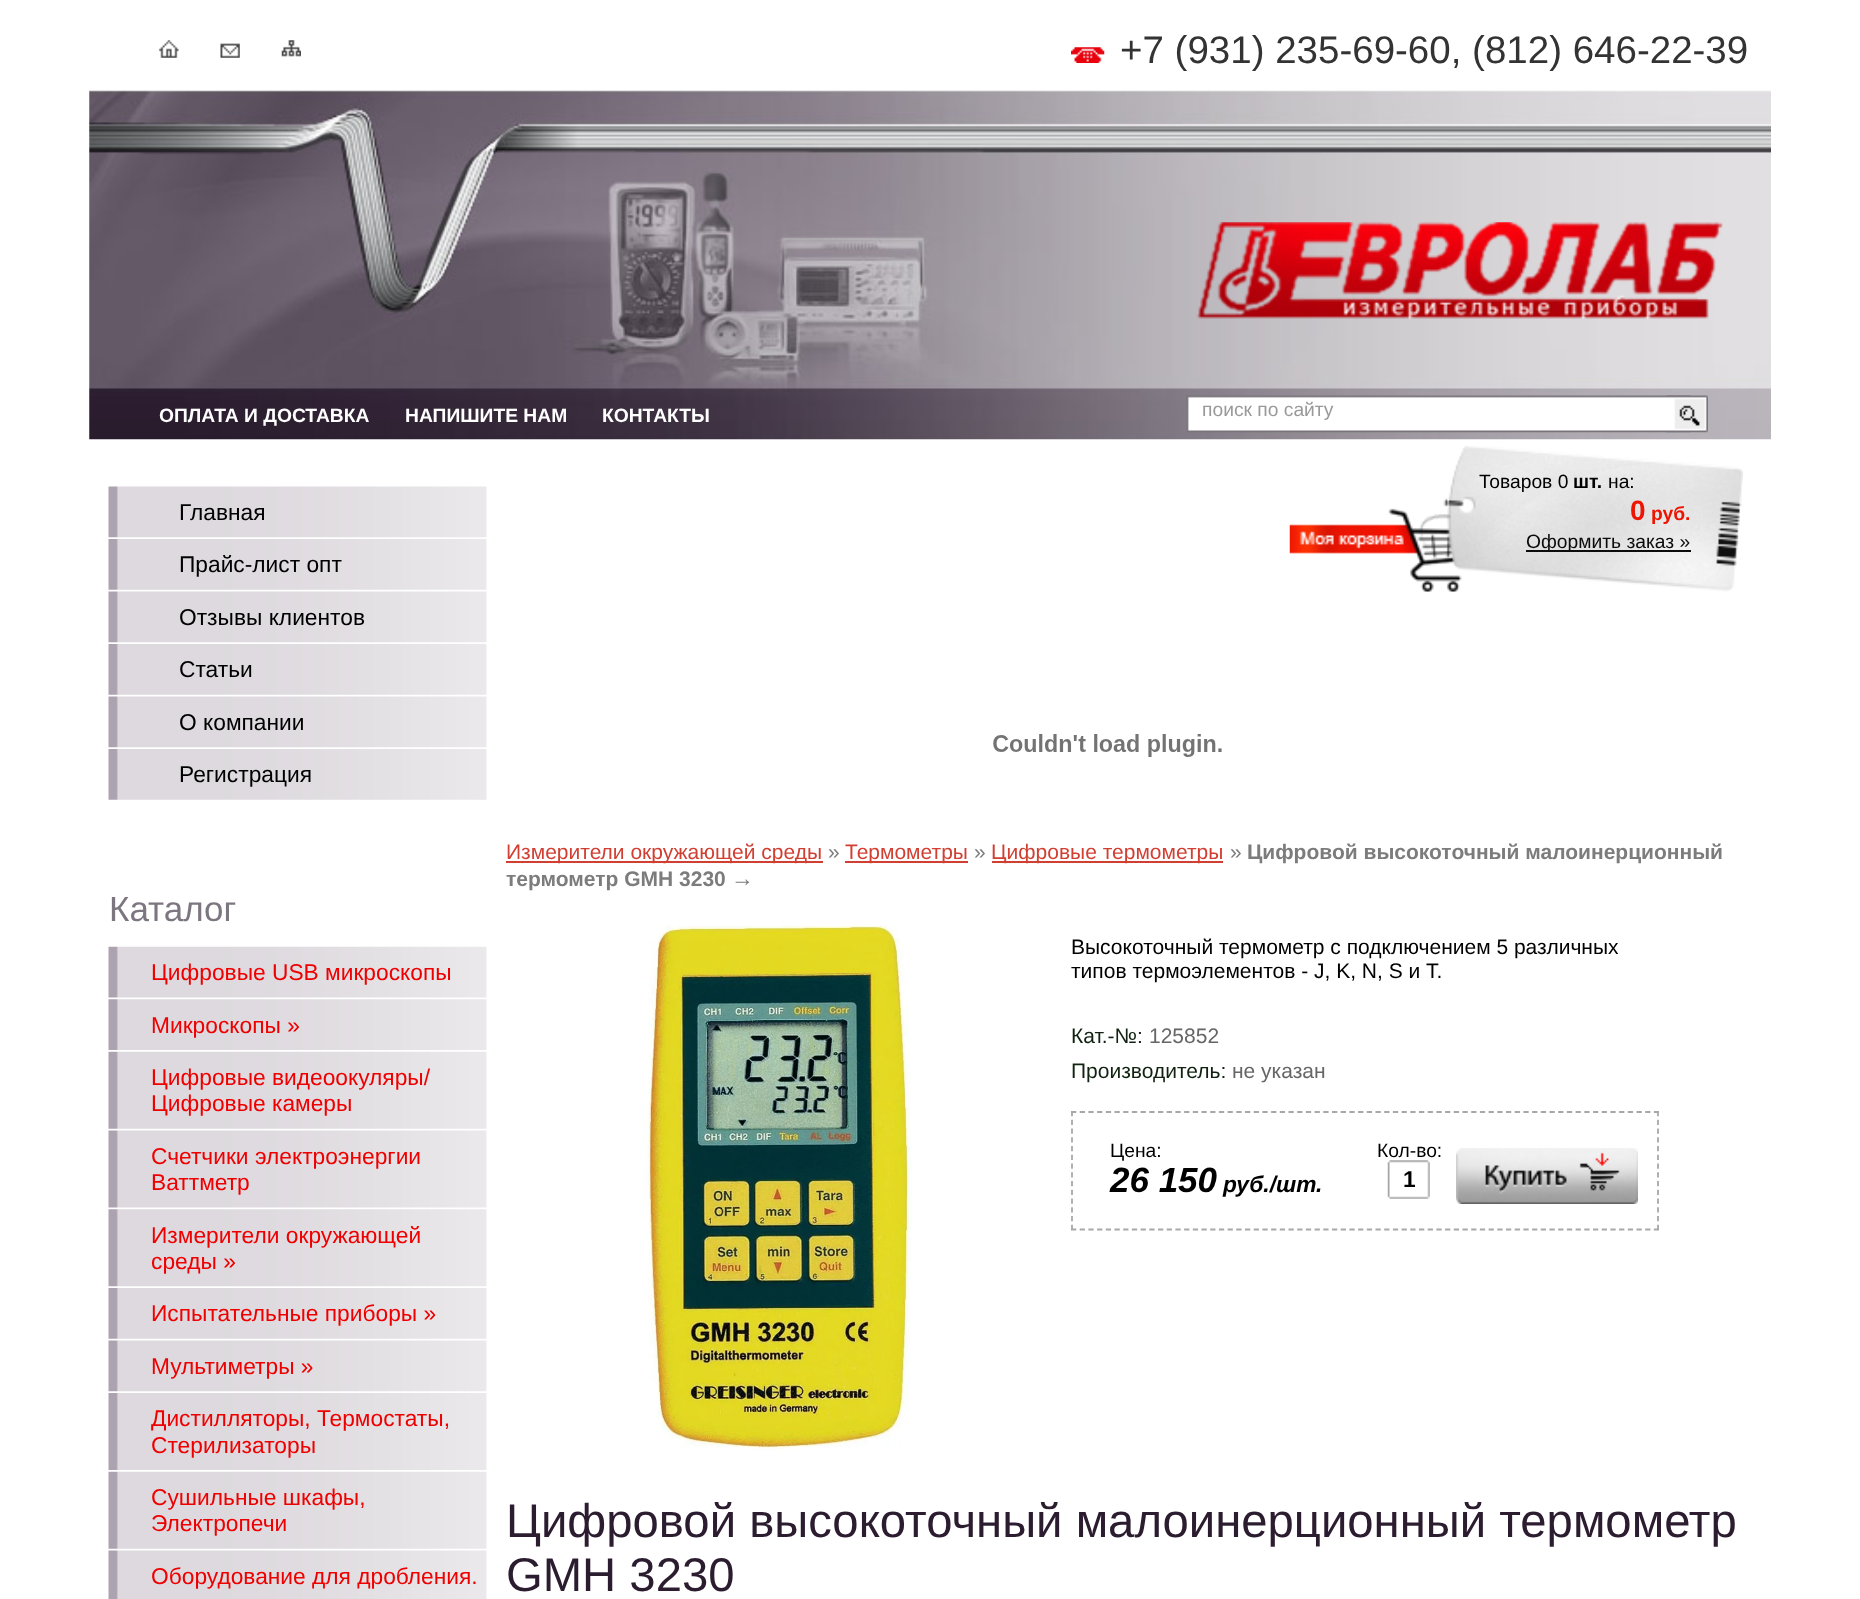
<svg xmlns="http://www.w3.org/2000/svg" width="1860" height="1599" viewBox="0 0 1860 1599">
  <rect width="100%" height="100%" fill="#ffffff"/>
  <image x="89" y="90" width="1682" height="350" href="img1.png"/>
  <image x="159" y="40" width="20" height="18" href="img2.png"/>
  <image x="220" y="43" width="20" height="15" href="img3.png"/>
  <image x="281" y="40" width="20" height="17" href="img4.png"/>
  <image x="1071" y="47" width="34" height="16" href="img5.png"/>
  <text x="1120" y="63" font-family="Liberation Sans" font-size="38.5" fill="#333333">+7 (931) 235-69-60, (812) 646-22-39</text>
  <image x="1196" y="222" width="527" height="97" href="img6.png"/>
  <text x="159" y="422" font-family="Liberation Sans" font-size="19.25" font-weight="bold" fill="#ffffff">ОПЛАТА И ДОСТАВКА</text>
  <text x="405" y="422" font-family="Liberation Sans" font-size="19.25" font-weight="bold" fill="#ffffff">НАПИШИТЕ НАМ</text>
  <text x="602" y="422" font-family="Liberation Sans" font-size="19.25" font-weight="bold" fill="#ffffff">КОНТАКТЫ</text>
  <image x="1186" y="395" width="505" height="38" href="img7.png"/>
  <text x="1202" y="416" font-family="Liberation Sans" font-size="19.25" fill="#999999">поиск по сайту</text>
  <image x="1666" y="395" width="42" height="38" href="img8.png"/>
  <image x="1289" y="446" width="454" height="146" href="img9.png"/>
  <text x="1479" y="488" font-family="Liberation Sans" font-size="19.25" fill="#000000">Товаров 0</text>
  <text x="1573" y="488" font-family="Liberation Sans" font-size="19.25" font-weight="bold" fill="#000000">шт.</text>
  <text x="1608" y="488" font-family="Liberation Sans" font-size="19.25" fill="#000000">на:</text>
  <text x="1630" y="520" font-family="Liberation Sans" font-size="28" font-weight="bold" fill="#ed1401">0</text>
  <text x="1651" y="520" font-family="Liberation Sans" font-size="19.25" font-weight="bold" fill="#ed1401">руб.</text>
  <rect x="1526" y="550" width="165" height="2" fill="#0b0b0b"/>
  <text x="1526" y="548" font-family="Liberation Sans" font-size="19.25" fill="#0b0b0b">Оформить заказ »</text>
  <image x="108" y="486" width="379" height="52" href="img10.png"/>
  <text x="179" y="520" font-family="Liberation Sans" font-size="22.75" fill="#000000">Главная</text>
  <image x="108" y="539" width="379" height="51" href="img11.png"/>
  <text x="179" y="572" font-family="Liberation Sans" font-size="22.75" fill="#000000">Прайс-лист опт</text>
  <image x="108" y="591" width="379" height="52" href="img10.png"/>
  <text x="179" y="625" font-family="Liberation Sans" font-size="22.75" fill="#000000">Отзывы клиентов</text>
  <image x="108" y="644" width="379" height="51" href="img11.png"/>
  <text x="179" y="677" font-family="Liberation Sans" font-size="22.75" fill="#000000">Статьи</text>
  <image x="108" y="696" width="379" height="52" href="img10.png"/>
  <text x="179" y="730" font-family="Liberation Sans" font-size="22.75" fill="#000000">О компании</text>
  <image x="108" y="749" width="379" height="51" href="img11.png"/>
  <text x="179" y="782" font-family="Liberation Sans" font-size="22.75" fill="#000000">Регистрация</text>
  <text x="109" y="921" font-family="Liberation Sans" font-size="35" fill="#7d7580">Каталог</text>
  <image x="108" y="946" width="379" height="52" href="img12.png"/>
  <text x="151" y="980" font-family="Liberation Sans" font-size="22.75" fill="#ef0000">Цифровые USB микроскопы</text>
  <image x="108" y="999" width="379" height="51" href="img13.png"/>
  <text x="151" y="1033" font-family="Liberation Sans" font-size="22.75" fill="#ef0000">Микроскопы »</text>
  <image x="108" y="1051" width="379" height="78" href="img14.png"/>
  <text x="151" y="1085" font-family="Liberation Sans" font-size="22.75" fill="#ef0000">Цифровые видеоокуляры/</text>
  <text x="151" y="1111" font-family="Liberation Sans" font-size="22.75" fill="#ef0000">Цифровые камеры</text>
  <image x="108" y="1130" width="379" height="78" href="img15.png"/>
  <text x="151" y="1164" font-family="Liberation Sans" font-size="22.75" fill="#ef0000">Счетчики электроэнергии</text>
  <text x="151" y="1190" font-family="Liberation Sans" font-size="22.75" fill="#ef0000">Ваттметр</text>
  <image x="108" y="1209" width="379" height="78" href="img16.png"/>
  <text x="151" y="1243" font-family="Liberation Sans" font-size="22.75" fill="#ef0000">Измерители окружающей</text>
  <text x="151" y="1269" font-family="Liberation Sans" font-size="22.75" fill="#ef0000">среды »</text>
  <image x="108" y="1288" width="379" height="51" href="img11.png"/>
  <text x="151" y="1321" font-family="Liberation Sans" font-size="22.75" fill="#ef0000">Испытательные приборы »</text>
  <image x="108" y="1340" width="379" height="52" href="img10.png"/>
  <text x="151" y="1374" font-family="Liberation Sans" font-size="22.75" fill="#ef0000">Мультиметры »</text>
  <image x="108" y="1393" width="379" height="77" href="img17.png"/>
  <text x="151" y="1426" font-family="Liberation Sans" font-size="22.75" fill="#ef0000">Дистилляторы, Термостаты,</text>
  <text x="151" y="1453" font-family="Liberation Sans" font-size="22.75" fill="#ef0000">Стерилизаторы</text>
  <image x="108" y="1471" width="379" height="78" href="img14.png"/>
  <text x="151" y="1505" font-family="Liberation Sans" font-size="22.75" fill="#ef0000">Сушильные шкафы,</text>
  <text x="151" y="1531" font-family="Liberation Sans" font-size="22.75" fill="#ef0000">Электропечи</text>
  <image x="108" y="1550" width="379" height="49" href="img18.png"/>
  <text x="151" y="1584" font-family="Liberation Sans" font-size="22.75" fill="#ef0000">Оборудование для дробления.</text>
  <image x="993" y="734" width="229" height="23" href="img19.png"/>
  <rect x="506" y="861" width="317" height="2" fill="#d13f32"/>
  <text x="506" y="859" font-family="Liberation Sans" font-size="21" fill="#d13f32">Измерители окружающей среды</text>
  <text x="828" y="859" font-family="Liberation Sans" font-size="21" fill="#7c7c7c">»</text>
  <rect x="845" y="861" width="123" height="2" fill="#d13f32"/>
  <text x="845" y="859" font-family="Liberation Sans" font-size="21" fill="#d13f32">Термометры</text>
  <text x="974" y="859" font-family="Liberation Sans" font-size="21" fill="#7c7c7c">»</text>
  <rect x="992" y="861" width="231" height="2" fill="#d13f32"/>
  <text x="991" y="859" font-family="Liberation Sans" font-size="21" fill="#d13f32">Цифровые термометры</text>
  <text x="1230" y="859" font-family="Liberation Sans" font-size="21" fill="#7c7c7c">»</text>
  <text x="1247" y="859" font-family="Liberation Sans" font-size="21" font-weight="bold" fill="#7c7c7c">Цифровой высокоточный малоинерционный</text>
  <text x="506" y="886" font-family="Liberation Sans" font-size="21" font-weight="bold" fill="#7c7c7c">термометр GMH 3230</text>
  <text x="731" y="886" font-family="Liberation Sans" font-size="22.75" fill="#7c7c7c">→</text>
  <image x="644" y="925" width="268" height="526" href="img20.png"/>
  <text x="1071" y="954" font-family="Liberation Sans" font-size="21" fill="#000000">Высокоточный термометр с подключением 5 различных</text>
  <text x="1071" y="978" font-family="Liberation Sans" font-size="21" fill="#000000">типов термоэлементов - J, K, N, S и T.</text>
  <text x="1071" y="1043" font-family="Liberation Sans" font-size="21" fill="#112211">Кат.-№:</text>
  <text x="1149" y="1043" font-family="Liberation Sans" font-size="21" fill="#666666">125852</text>
  <text x="1071" y="1078" font-family="Liberation Sans" font-size="21" fill="#112211">Производитель:</text>
  <text x="1232" y="1078" font-family="Liberation Sans" font-size="21" fill="#666666">не указан</text>
  <path d="M1071 1112H1659" fill="none" stroke="#a8a8a8" stroke-width="1.8" stroke-dasharray="5.25 3.45"/>
  <path d="M1658 1111V1230" fill="none" stroke="#a8a8a8" stroke-width="1.8" stroke-dasharray="5.25 3.5"/>
  <path d="M1071 1229.5H1659" fill="none" stroke="#a8a8a8" stroke-width="1.8" stroke-dasharray="5.25 3.45"/>
  <path d="M1072 1111V1230" fill="none" stroke="#a8a8a8" stroke-width="1.8" stroke-dasharray="5.25 3.5"/>
  <text x="1110" y="1157" font-family="Liberation Sans" font-size="19.25" fill="#000000">Цена:</text>
  <text x="1110" y="1192" font-family="Liberation Sans" font-size="35" font-weight="bold" font-style="italic" fill="#000000">26 150</text>
  <text x="1223" y="1192" font-family="Liberation Sans" font-size="22.75" font-weight="bold" font-style="italic" fill="#000000">руб./шт.</text>
  <text x="1377" y="1157" font-family="Liberation Sans" font-size="19.25" fill="#000000">Кол-во:</text>
  <image x="1387" y="1160" width="43" height="39" href="img21.png"/>
  <text x="1403" y="1187" font-family="Liberation Sans" font-size="22.75" font-weight="bold" fill="#000000">1</text>
  <image x="1456" y="1148" width="182" height="56" href="img22.png"/>
  <text x="506" y="1537" font-family="Liberation Sans" font-size="47.25" fill="#2b1c2f">Цифровой высокоточный малоинерционный термометр</text>
  <text x="506" y="1591" font-family="Liberation Sans" font-size="47.25" fill="#2b1c2f">GMH 3230</text>
</svg>
